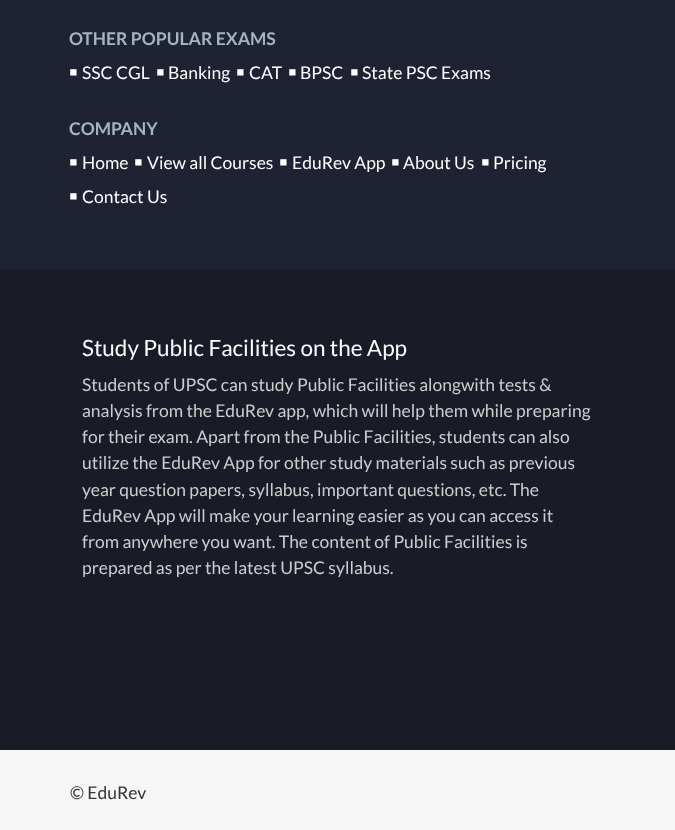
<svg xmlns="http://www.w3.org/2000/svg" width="675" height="830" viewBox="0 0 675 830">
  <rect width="100%" height="100%" fill="#f6f6f6"/>
  <rect x="0" y="0" width="675" height="269" fill="#1e2232"/>
  <text x="69" y="45" font-family="Lato" font-size="17.5" font-weight="bold" fill="#a3b4c6">OTHER POPULAR EXAMS</text>
  <text x="69" y="79" font-family="Chiron Hei HK" font-size="17.5" fill="#ffffff">￭</text>
  <text x="82" y="79" font-family="Lato" font-size="17.5" fill="#ffffff">SSC CGL</text>
  <text x="156" y="79" font-family="Chiron Hei HK" font-size="17.5" fill="#ffffff">￭</text>
  <text x="168" y="79" font-family="Lato" font-size="17.5" fill="#ffffff">Banking</text>
  <text x="236" y="79" font-family="Chiron Hei HK" font-size="17.5" fill="#ffffff">￭</text>
  <text x="249" y="79" font-family="Lato" font-size="17.5" fill="#ffffff">CAT</text>
  <text x="288" y="79" font-family="Chiron Hei HK" font-size="17.5" fill="#ffffff">￭</text>
  <text x="300" y="79" font-family="Lato" font-size="17.5" fill="#ffffff">BPSC</text>
  <text x="350" y="79" font-family="Chiron Hei HK" font-size="17.5" fill="#ffffff">￭</text>
  <text x="362" y="79" font-family="Lato" font-size="17.5" fill="#ffffff">State PSC Exams</text>
  <text x="69" y="135" font-family="Lato" font-size="17.5" font-weight="bold" fill="#a3b4c6">COMPANY</text>
  <text x="69" y="169" font-family="Chiron Hei HK" font-size="17.5" fill="#ffffff">￭</text>
  <text x="82" y="169" font-family="Lato" font-size="17.5" fill="#ffffff">Home</text>
  <text x="134" y="169" font-family="Chiron Hei HK" font-size="17.5" fill="#ffffff">￭</text>
  <text x="147" y="169" font-family="Lato" font-size="17.5" fill="#ffffff">View all Courses</text>
  <text x="279" y="169" font-family="Chiron Hei HK" font-size="17.5" fill="#ffffff">￭</text>
  <text x="292" y="169" font-family="Lato" font-size="17.5" fill="#ffffff">EduRev App</text>
  <text x="391" y="169" font-family="Chiron Hei HK" font-size="17.5" fill="#ffffff">￭</text>
  <text x="403" y="169" font-family="Lato" font-size="17.5" fill="#ffffff">About Us</text>
  <text x="481" y="169" font-family="Chiron Hei HK" font-size="17.5" fill="#ffffff">￭</text>
  <text x="493" y="169" font-family="Lato" font-size="17.5" fill="#ffffff">Pricing</text>
  <text x="69" y="203" font-family="Chiron Hei HK" font-size="17.5" fill="#ffffff">￭</text>
  <text x="82" y="203" font-family="Lato" font-size="17.5" fill="#ffffff">Contact Us</text>
  <rect x="0" y="269" width="675" height="481" fill="#191c27"/>
  <text x="82" y="356" font-family="Lato" font-size="22.5" fill="#ffffff">Study Public Facilities on the App</text>
  <text x="82" y="391" font-family="Lato" font-size="17.5" fill="#cdcdcd">Students of UPSC can study Public Facilities alongwith tests &amp;</text>
  <text x="82" y="417" font-family="Lato" font-size="17.5" fill="#cdcdcd">analysis from the EduRev app, which will help them while preparing</text>
  <text x="82" y="443" font-family="Lato" font-size="17.5" fill="#cdcdcd">for their exam. Apart from the Public Facilities, students can also</text>
  <text x="82" y="469" font-family="Lato" font-size="17.5" fill="#cdcdcd">utilize the EduRev App for other study materials such as previous</text>
  <text x="82" y="496" font-family="Lato" font-size="17.5" fill="#cdcdcd">year question papers, syllabus, important questions, etc. The</text>
  <text x="82" y="522" font-family="Lato" font-size="17.5" fill="#cdcdcd">EduRev App will make your learning easier as you can access it</text>
  <text x="82" y="548" font-family="Lato" font-size="17.5" fill="#cdcdcd">from anywhere you want. The content of Public Facilities is</text>
  <text x="82" y="574" font-family="Lato" font-size="17.5" fill="#cdcdcd">prepared as per the latest UPSC syllabus.</text>
  <text x="70" y="799" font-family="Lato" font-size="17.5" fill="#333333">© EduRev</text>
</svg>
